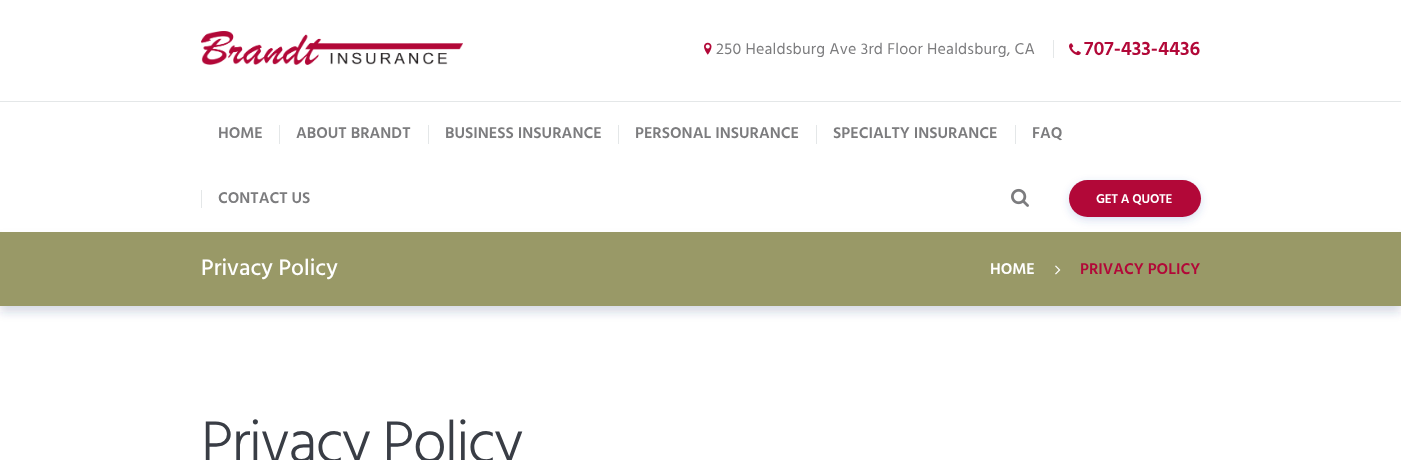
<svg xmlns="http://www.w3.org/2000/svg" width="1401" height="460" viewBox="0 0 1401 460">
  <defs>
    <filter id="blur1" x="-50%" y="-200%" width="200%" height="500%"><feGaussianBlur stdDeviation="5"/></filter>
    <filter id="blur2" x="-50%" y="-200%" width="200%" height="500%"><feGaussianBlur stdDeviation="4"/></filter>
  </defs>
  <rect width="100%" height="100%" fill="#ffffff"/>
  <rect x="0" y="238" width="1401" height="74" fill="#2a366d" fill-opacity="0.19" filter="url(#blur1)"/>
  <rect x="2" y="230" width="1397" height="2" fill="#ffffff"/>
  <image x="201" y="31" width="262" height="34" href="img1.png"/>
  <image x="704" y="42" width="8" height="13" href="img2.png"/>
  <text x="716" y="54" font-family="Hind" font-size="16" letter-spacing="0.2" fill="#7c7c7e">250 Healdsburg Ave 3rd Floor Healdsburg, CA</text>
  <rect x="1053" y="40" width="1" height="18" fill="#e4e7e8"/>
  <image x="1069" y="43" width="12" height="13" href="img3.png"/>
  <text x="1084" y="55" font-family="Hind" font-size="20" font-weight="600" fill="#b20838">707-433-4436</text>
  <rect x="0" y="101" width="1401" height="1" fill="#e4e7e8"/>
  <text x="218" y="138" font-family="Hind" font-size="16" font-weight="600" fill="#7c7c7e">HOME</text>
  <rect x="279" y="125" width="1" height="19" fill="#e4e7e8"/>
  <text x="296" y="138" font-family="Hind" font-size="16" font-weight="600" fill="#7c7c7e">ABOUT BRANDT</text>
  <rect x="428" y="125" width="1" height="19" fill="#e4e7e8"/>
  <text x="445" y="138" font-family="Hind" font-size="16" font-weight="600" fill="#7c7c7e">BUSINESS INSURANCE</text>
  <rect x="618" y="125" width="1" height="19" fill="#e4e7e8"/>
  <text x="635" y="138" font-family="Hind" font-size="16" font-weight="600" fill="#7c7c7e">PERSONAL INSURANCE</text>
  <rect x="816" y="125" width="1" height="19" fill="#e4e7e8"/>
  <text x="833" y="138" font-family="Hind" font-size="16" font-weight="600" fill="#7c7c7e">SPECIALTY INSURANCE</text>
  <rect x="1015" y="125" width="1" height="19" fill="#e4e7e8"/>
  <text x="1032" y="138" font-family="Hind" font-size="16" font-weight="600" fill="#7c7c7e">FAQ</text>
  <rect x="201" y="190" width="1" height="18" fill="#e4e7e8"/>
  <text x="218" y="203" font-family="Hind" font-size="16" font-weight="600" fill="#7c7c7e">CONTACT US</text>
  <image x="1011" y="188" width="18" height="19" href="img4.png"/>
  <rect x="0" y="232" width="1401" height="74" fill="#999967"/>
  <rect x="1069" y="183" width="132" height="37" rx="18.5" fill="#3d53b5" fill-opacity="0.2" filter="url(#blur2)"/>
  <rect x="1069" y="180" width="132" height="37" rx="18.5" fill="#b20838"/>
  <text x="1096" y="203" font-family="Hind" font-size="13" font-weight="600" letter-spacing="-0.25" fill="#ffffff">GET A QUOTE</text>
  <text x="201" y="275" font-family="Hind" font-size="23" font-weight="500" fill="#ffffff">Privacy Policy</text>
  <text x="990" y="274" font-family="Hind" font-size="16" font-weight="600" fill="#ffffff">HOME</text>
  <image x="1055" y="265" width="6" height="10" href="img5.png"/>
  <text x="1080" y="274" font-family="Hind" font-size="16" font-weight="600" fill="#b20838">PRIVACY POLICY</text>
  <text x="201" y="462" font-family="Hind" font-size="60" font-weight="300" letter-spacing="-1.75" fill="#393d45">Privacy Policy</text>
</svg>
